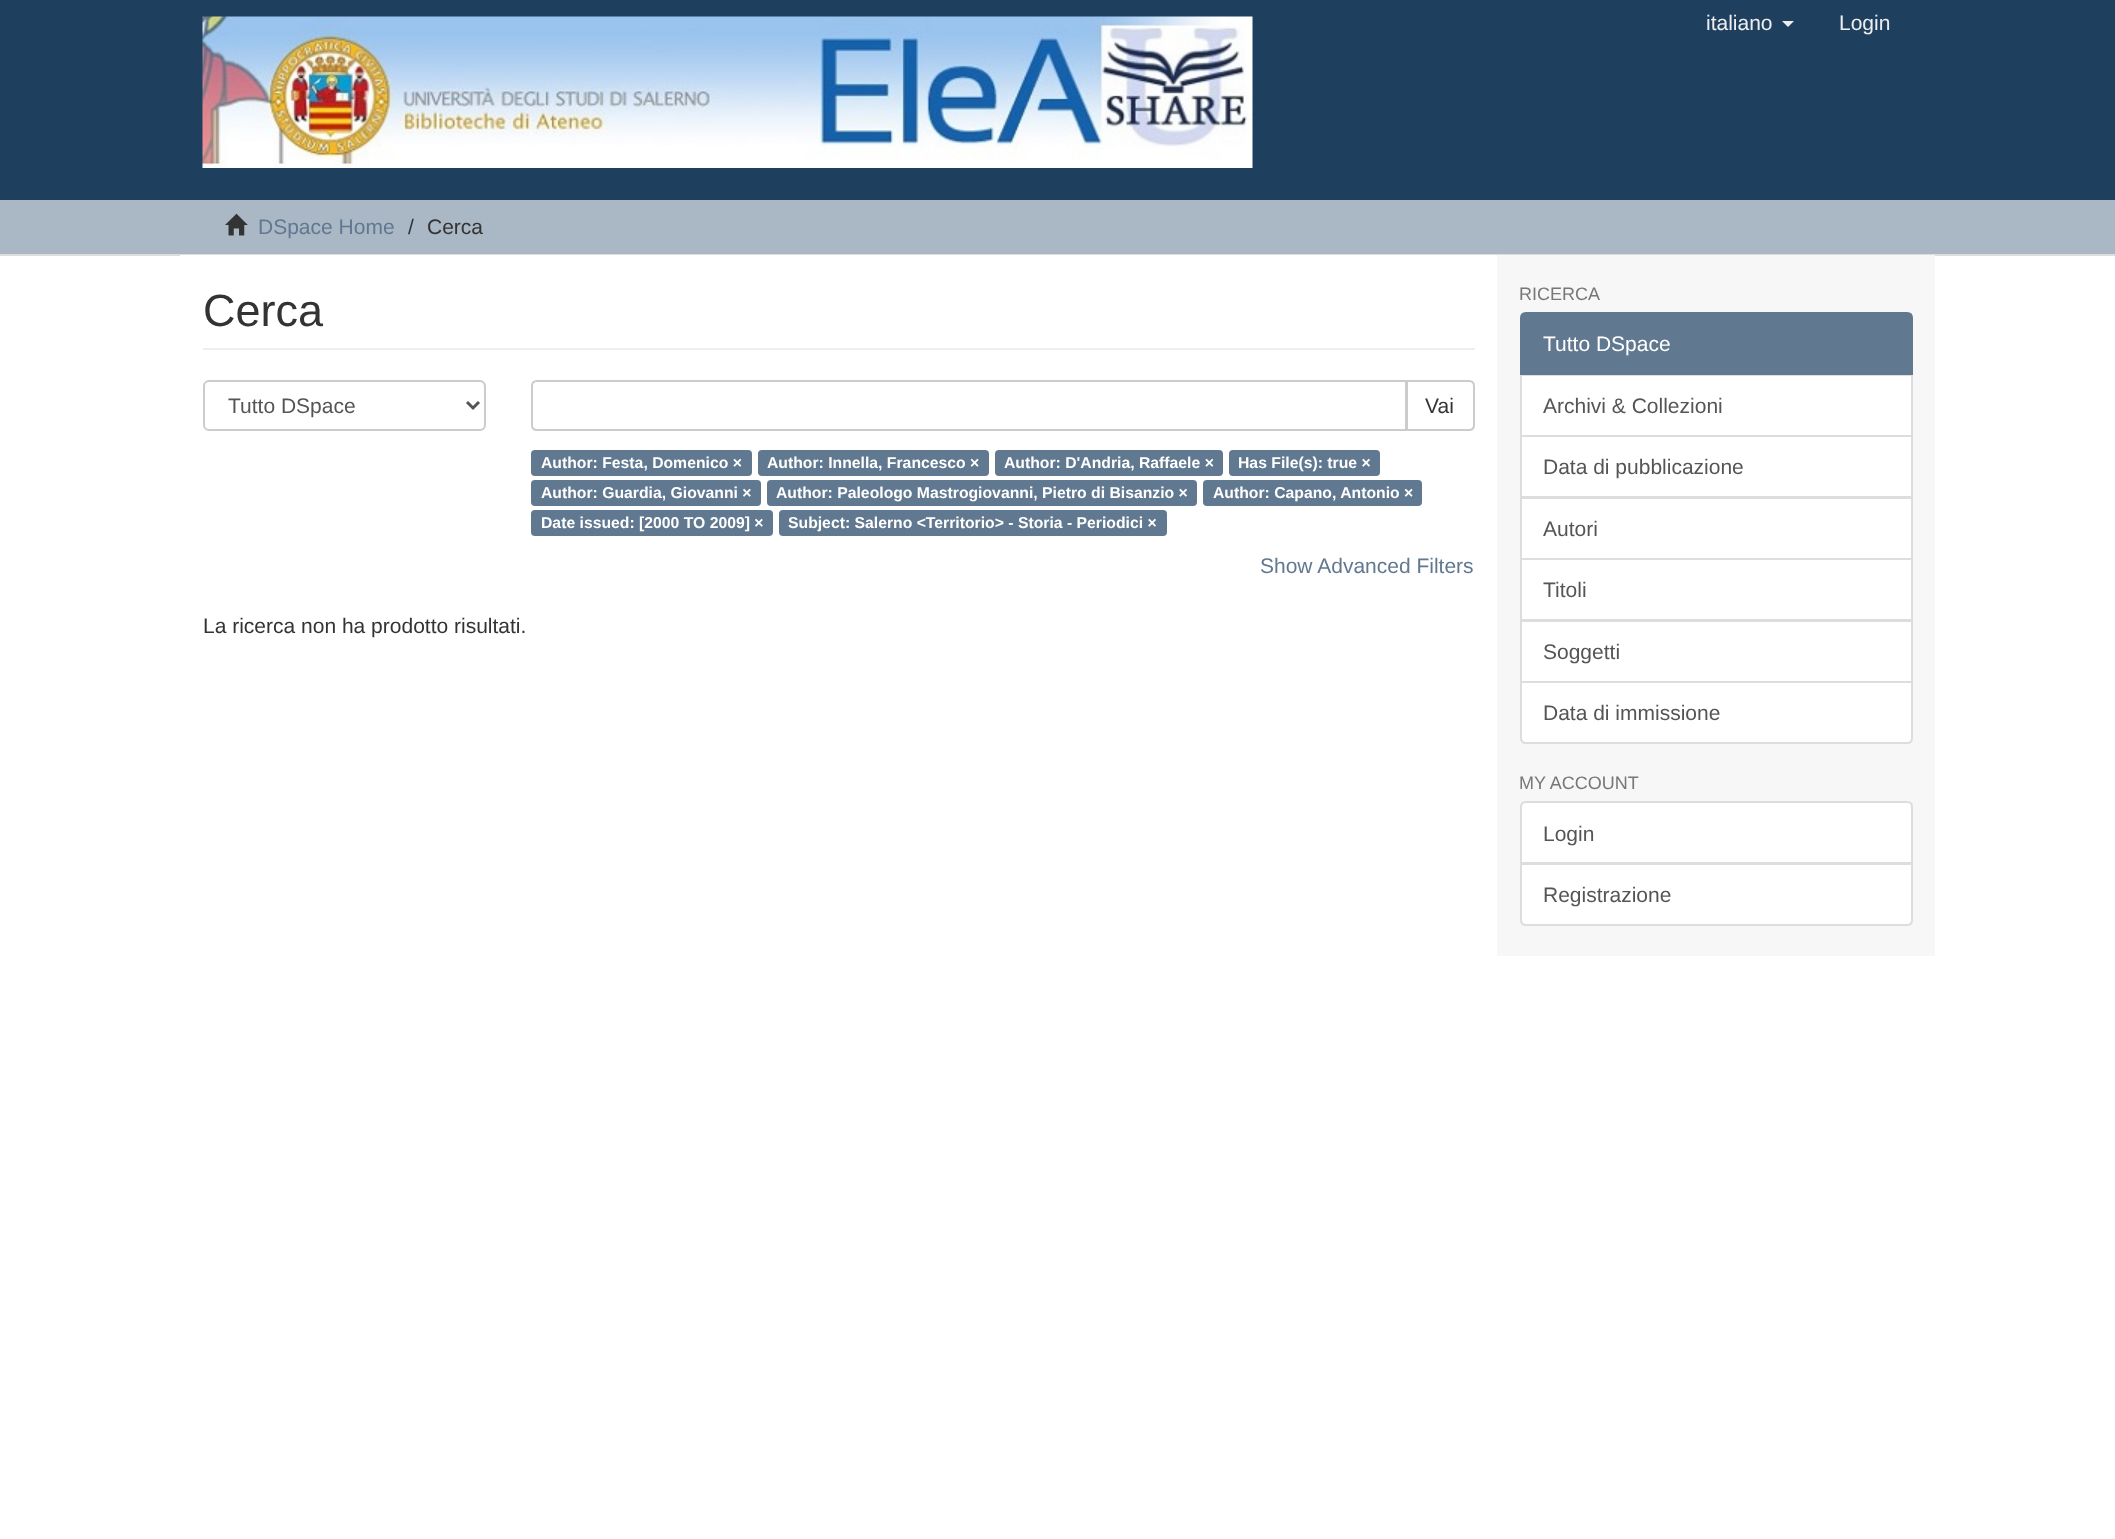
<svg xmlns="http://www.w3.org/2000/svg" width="2115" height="1539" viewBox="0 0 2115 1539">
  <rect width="100%" height="100%" fill="#ffffff"/>
  <rect x="0" y="0" width="2115" height="200" fill="#1f3f5e"/>
  <image x="202" y="16" width="1051" height="152" href="img1.png"/>
  <text x="1706" y="30" font-family="Liberation Sans" font-size="21" fill="#eeeeee">italiano</text>
  <path d="M1782 21H1794L1788 27Z" fill="#eeeeee"/>
  <text x="1839" y="30" font-family="Liberation Sans" font-size="21" fill="#eeeeee">Login</text>
  <rect x="0" y="200" width="2115" height="54" fill="#aab8c6"/>
  <rect x="0" y="254" width="2115" height="2" fill="#dddddd"/>
  <image x="225" y="213" width="23" height="23" href="img2.png"/>
  <text x="258" y="234" font-family="Liberation Sans" font-size="21" fill="#607890">DSpace Home</text>
  <text x="408" y="234" font-family="Liberation Sans" font-size="21" fill="#333333">/</text>
  <text x="427" y="234" font-family="Liberation Sans" font-size="21" fill="#333333">Cerca</text>
  <rect x="1497" y="255" width="438" height="701" fill="#f7f7f7"/>
  <rect x="180" y="255" width="1317" height="1" fill="#ffffff"/>
  <rect x="203" y="348" width="1272" height="2" fill="#eeeeee"/>
  <text x="203" y="326" font-family="Liberation Sans" font-size="45" fill="#333333">Cerca</text>
  <path d="M208 382H480C482 382 484 385 484 387V427C485 426 485 425 485 424V386C485 383 483 381 480 381H209C206 381 204 383 204 386V387C204 385 206 382 208 382Z" fill="#ececec"/>
  <rect x="204" y="381" width="281" height="49" rx="5" fill="none" stroke="#cccccc" stroke-width="2"/>
  <path d="M467 402L473 408L479 402" fill="none" stroke="#555555" stroke-width="3"/>
  <text x="228" y="413" font-family="Liberation Sans" font-size="21" fill="#555555">Tutto DSpace</text>
  <path d="M1407 381H1469C1472 381 1474 383 1474 386V425C1474 428 1472 430 1469 430H1407Z" fill="none" stroke="#cccccc" stroke-width="2"/>
  <path d="M537 381H1406V430H537C534 430 532 428 532 425V386C532 383 534 381 537 381Z" fill="#ffffff" stroke="#cccccc" stroke-width="2"/>
  <text x="1425" y="413" font-family="Liberation Sans" font-size="21" fill="#333333">Vai</text>
  <rect x="531" y="450" width="221" height="26" rx="4" fill="#607890"/>
  <text x="541" y="468" font-family="Liberation Sans" font-size="15.75" font-weight="bold" fill="#ffffff">Author: Festa, Domenico ×</text>
  <rect x="758" y="450" width="231" height="26" rx="4" fill="#607890"/>
  <text x="767" y="468" font-family="Liberation Sans" font-size="15.75" font-weight="bold" fill="#ffffff">Author: Innella, Francesco ×</text>
  <rect x="995" y="450" width="228" height="26" rx="4" fill="#607890"/>
  <text x="1004" y="468" font-family="Liberation Sans" font-size="15.75" font-weight="bold" fill="#ffffff">Author: D'Andria, Raffaele ×</text>
  <rect x="1229" y="450" width="151" height="26" rx="4" fill="#607890"/>
  <text x="1238" y="468" font-family="Liberation Sans" font-size="15.75" font-weight="bold" fill="#ffffff">Has File(s): true ×</text>
  <rect x="531" y="480" width="230" height="26" rx="4" fill="#607890"/>
  <text x="541" y="498" font-family="Liberation Sans" font-size="15.75" font-weight="bold" fill="#ffffff">Author: Guardia, Giovanni ×</text>
  <rect x="767" y="480" width="430" height="26" rx="4" fill="#607890"/>
  <text x="776" y="498" font-family="Liberation Sans" font-size="15.75" font-weight="bold" fill="#ffffff">Author: Paleologo Mastrogiovanni, Pietro di Bisanzio ×</text>
  <rect x="1203" y="480" width="219" height="26" rx="4" fill="#607890"/>
  <text x="1213" y="498" font-family="Liberation Sans" font-size="15.75" font-weight="bold" fill="#ffffff">Author: Capano, Antonio ×</text>
  <rect x="531" y="510" width="242" height="26" rx="4" fill="#607890"/>
  <text x="541" y="528" font-family="Liberation Sans" font-size="15.75" font-weight="bold" fill="#ffffff">Date issued: [2000 TO 2009] ×</text>
  <rect x="779" y="510" width="388" height="26" rx="4" fill="#607890"/>
  <text x="788" y="528" font-family="Liberation Sans" font-size="15.75" font-weight="bold" fill="#ffffff">Subject: Salerno &lt;Territorio&gt; - Storia - Periodici ×</text>
  <text x="1260" y="573" font-family="Liberation Sans" font-size="21" fill="#607890">Show Advanced Filters</text>
  <text x="203" y="633" font-family="Liberation Sans" font-size="21" fill="#333333">La ricerca non ha prodotto risultati.</text>
  <text x="1519" y="300" font-family="Liberation Sans" font-size="18" fill="#777777">RICERCA</text>
  <rect x="1521" y="375" width="391" height="61" fill="#ffffff" stroke="#dddddd" stroke-width="2"/>
  <path d="M1526 313H1907C1910 313 1912 315 1912 318V374H1521V318C1521 315 1523 313 1526 313Z" fill="#607890" stroke="#607890" stroke-width="2"/>
  <text x="1543" y="351" font-family="Liberation Sans" font-size="21" fill="#ffffff">Tutto DSpace</text>
  <text x="1543" y="413" font-family="Liberation Sans" font-size="21" fill="#555555">Archivi &amp; Collezioni</text>
  <rect x="1521" y="436" width="391" height="61" fill="#ffffff" stroke="#dddddd" stroke-width="2"/>
  <text x="1543" y="474" font-family="Liberation Sans" font-size="21" fill="#555555">Data di pubblicazione</text>
  <rect x="1521" y="498" width="391" height="61" fill="#ffffff" stroke="#dddddd" stroke-width="2"/>
  <text x="1543" y="536" font-family="Liberation Sans" font-size="21" fill="#555555">Autori</text>
  <rect x="1521" y="559" width="391" height="61" fill="#ffffff" stroke="#dddddd" stroke-width="2"/>
  <text x="1543" y="597" font-family="Liberation Sans" font-size="21" fill="#555555">Titoli</text>
  <rect x="1521" y="621" width="391" height="61" fill="#ffffff" stroke="#dddddd" stroke-width="2"/>
  <text x="1543" y="659" font-family="Liberation Sans" font-size="21" fill="#555555">Soggetti</text>
  <path d="M1521 682H1912V738C1912 741 1910 743 1907 743H1526C1523 743 1521 741 1521 738Z" fill="#ffffff" stroke="#dddddd" stroke-width="2"/>
  <text x="1543" y="720" font-family="Liberation Sans" font-size="21" fill="#555555">Data di immissione</text>
  <text x="1519" y="789" font-family="Liberation Sans" font-size="18" fill="#777777">MY ACCOUNT</text>
  <path d="M1526 802H1907C1910 802 1912 804 1912 807V863H1521V807C1521 804 1523 802 1526 802Z" fill="#ffffff" stroke="#dddddd" stroke-width="2"/>
  <text x="1543" y="841" font-family="Liberation Sans" font-size="21" fill="#555555">Login</text>
  <path d="M1521 864H1912V920C1912 923 1910 925 1907 925H1526C1523 925 1521 923 1521 920Z" fill="#ffffff" stroke="#dddddd" stroke-width="2"/>
  <text x="1543" y="902" font-family="Liberation Sans" font-size="21" fill="#555555">Registrazione</text>
</svg>
